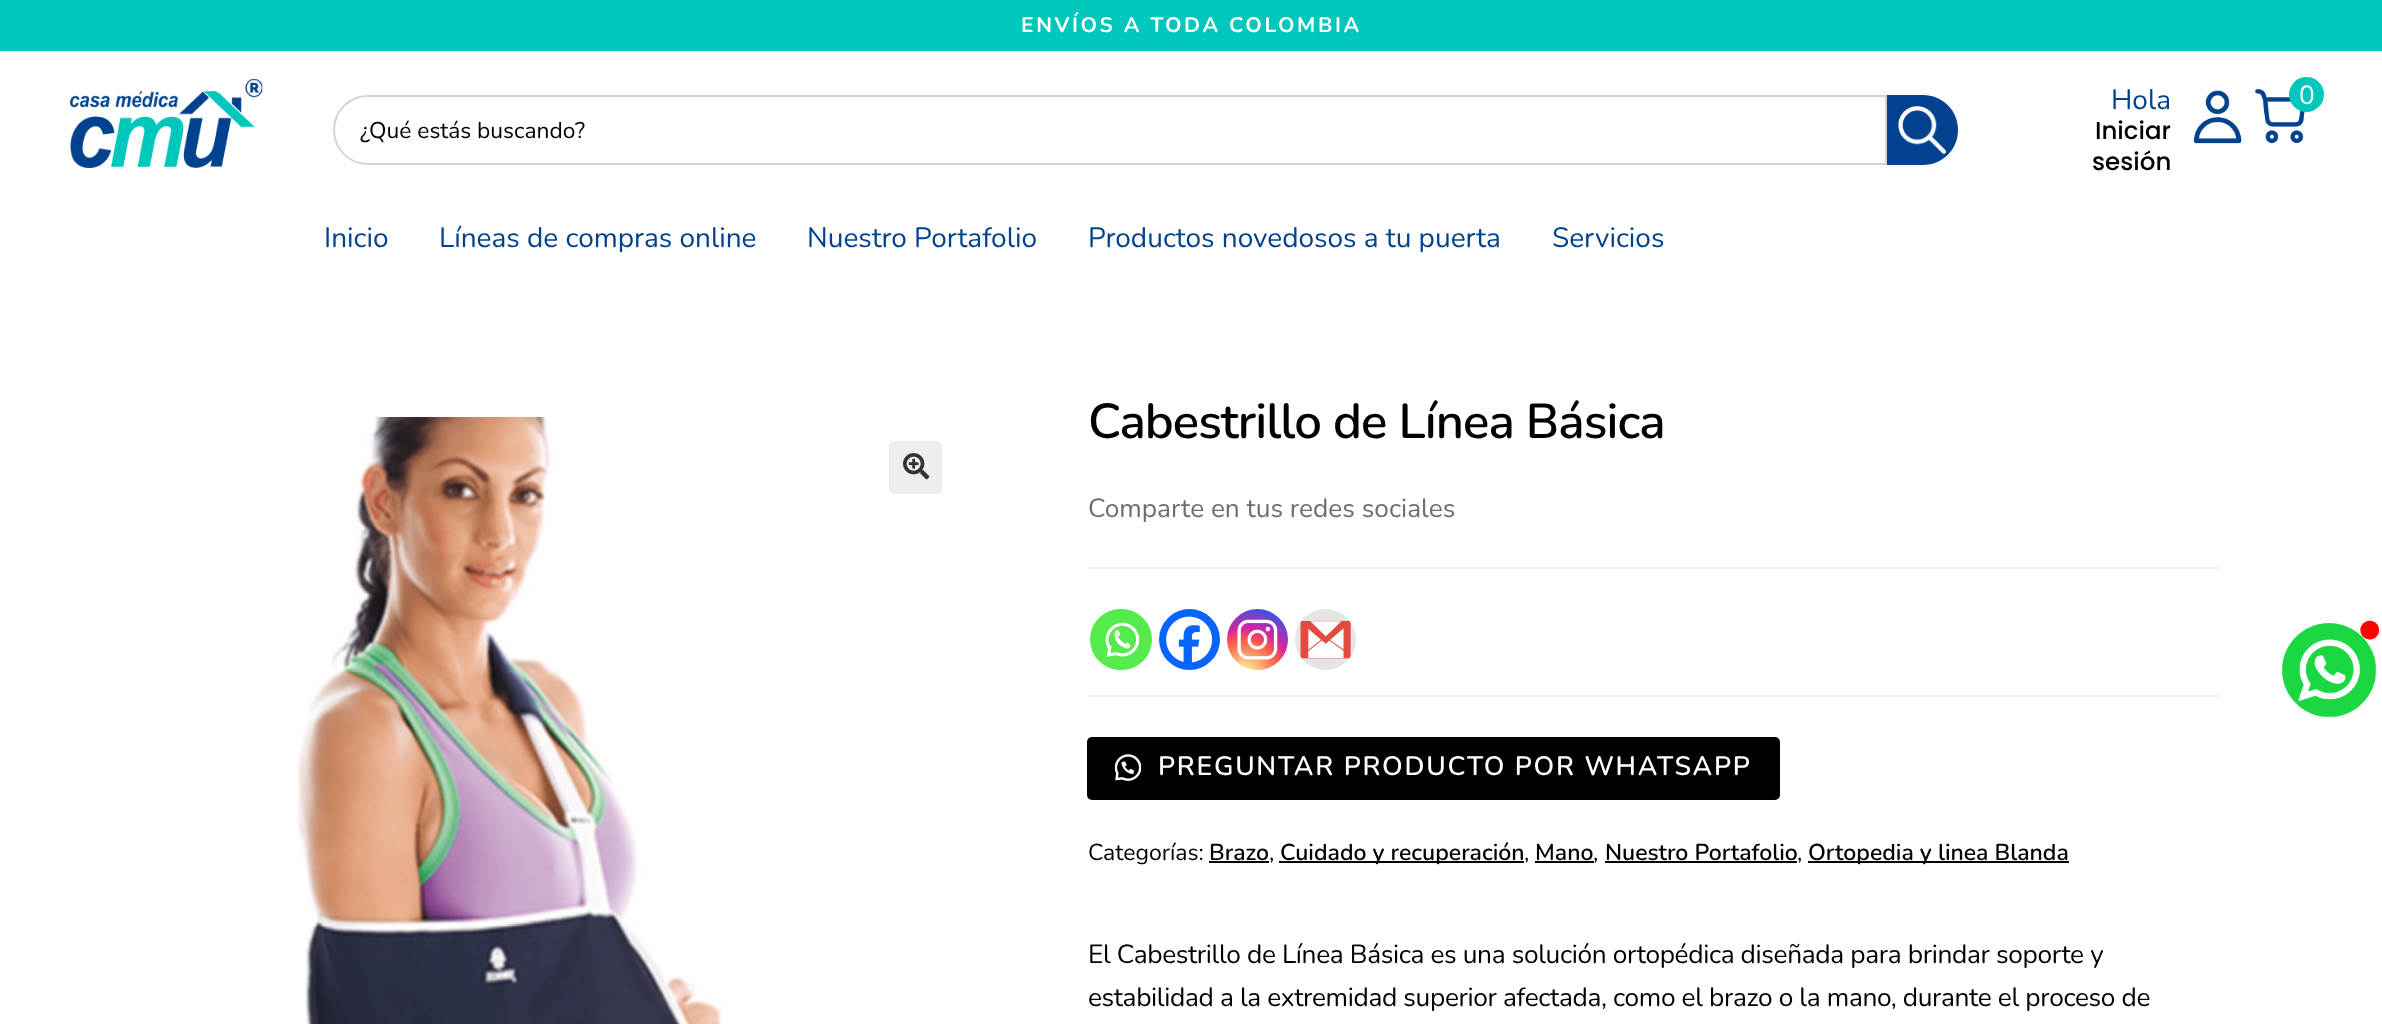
<svg xmlns="http://www.w3.org/2000/svg" width="2382" height="1024" viewBox="0 0 2382 1024">
  <defs>
    <radialGradient id="g1" gradientUnits="userSpaceOnUse" cx="1245" cy="675" r="78"><stop offset="0" stop-color="#fdf497"/><stop offset="0.05" stop-color="#fdf497"/><stop offset="0.45" stop-color="#fd5949"/><stop offset="0.6" stop-color="#d6249f"/><stop offset="0.9" stop-color="#285aeb"/></radialGradient>
  </defs>
  <rect width="100%" height="100%" fill="#ffffff"/>
  <rect x="0" y="0" width="2382" height="51" fill="#00c7bb"/>
  <text x="1021" y="32" font-family="Nunito" font-size="21" font-weight="bold" letter-spacing="2.6" fill="#ffffff">ENVÍOS A TODA COLOMBIA</text>
  <image x="70" y="78" width="193" height="90" href="img1.png"/>
  <path d="M1885 95H1923C1942.5 95 1958 110.5 1958 130C1958 149.5 1942.5 165 1923 165H1885Z" fill="#00428d"/>
  <path d="M368 96H1886V164H368C349 164 334 149 334 130C334 111 349 96 368 96Z" fill="#ffffff" stroke="#d3d3d3" stroke-width="2"/>
  <text x="360" y="138" font-family="Nunito" font-size="22.75" fill="#000000">¿Qué estás buscando?</text>
  <image x="1898" y="106" width="48" height="48" href="img2.png"/>
  <text x="2111" y="109" font-family="Nunito" font-size="28" fill="#00428d">Hola</text>
  <text x="2095" y="139" font-family="Poppins" font-size="24.5" font-weight="500" fill="#000000">Iniciar</text>
  <text x="2092" y="170" font-family="Poppins" font-size="24.5" font-weight="500" fill="#000000">sesión</text>
  <image x="2194" y="90" width="48" height="54" href="img3.png"/>
  <image x="2255" y="89" width="50" height="55" href="img4.png"/>
  <circle cx="2306.5" cy="94.5" r="17.5" fill="#00c7bb"/>
  <text x="2299" y="104" font-family="Nunito" font-size="26.25" fill="#ffffff">0</text>
  <text x="324" y="247" font-family="Nunito" font-size="28" fill="#00428d">Inicio</text>
  <text x="439" y="247" font-family="Nunito" font-size="28" fill="#00428d">Líneas de compras online</text>
  <text x="807" y="247" font-family="Nunito" font-size="28" fill="#00428d">Nuestro Portafolio</text>
  <text x="1088" y="247" font-family="Nunito" font-size="28" fill="#00428d">Productos novedosos a tu puerta</text>
  <text x="1552" y="247" font-family="Nunito" font-size="28" fill="#00428d">Servicios</text>
  <image x="297" y="417" width="425" height="607" href="img5.png"/>
  <rect x="889" y="441" width="53" height="53" rx="5" fill="#eeeeee"/>
  <image x="903" y="453" width="27" height="27" href="img6.png"/>
  <text x="1088" y="438" font-family="Nunito" font-size="49" font-weight="600" letter-spacing="-0.9" fill="#000000">Cabestrillo de Línea Básica</text>
  <text x="1088" y="517" font-family="Nunito" font-size="26.25" fill="#6d6d6d">Comparte en tus redes sociales</text>
  <rect x="1087" y="567" width="1134" height="2" fill="#f2f2f2"/>
  <rect x="1090" y="609" width="62" height="61" rx="30.5" fill="#55eb4c"/>
  <image x="1105" y="622" width="35" height="35" href="img7.png"/>
  <circle cx="1189.5" cy="639.5" r="30.5" fill="#0765fe"/>
  <image x="1166" y="616" width="47" height="47" href="img8.png"/>
  <circle cx="1257.5" cy="639.5" r="30.5" fill="url(#g1)"/>
  <image x="1237" y="619" width="41" height="41" href="img9.png"/>
  <circle cx="1325.5" cy="639.5" r="30.5" fill="#e5e5e5"/>
  <image x="1300" y="620" width="51" height="39" href="img10.png"/>
  <rect x="1087" y="695" width="1134" height="2" fill="#f2f2f2"/>
  <rect x="1087" y="737" width="693" height="63" rx="5" fill="#000000"/>
  <image x="1115" y="754" width="26" height="27" href="img11.png"/>
  <text x="1158" y="775" font-family="Nunito" font-size="26.6" font-weight="600" letter-spacing="1.75" fill="#ffffff">PREGUNTAR PRODUCTO POR WHATSAPP</text>
  <text x="1088" y="860" font-family="Nunito" font-size="23" fill="#000000">Categorías:</text>
  <text x="1209" y="860" font-family="Nunito" font-size="23" font-weight="600" fill="#000000">Brazo</text>
  <rect x="1209" y="861" width="60" height="2" fill="#000000"/>
  <text x="1269" y="860" font-family="Nunito" font-size="23" fill="#000000">,</text>
  <rect x="1279" y="861" width="245" height="2" fill="#000000"/>
  <text x="1280" y="860" font-family="Nunito" font-size="23" font-weight="600" fill="#000000">Cuidado y recuperación</text>
  <text x="1524" y="860" font-family="Nunito" font-size="23" fill="#000000">,</text>
  <text x="1535" y="860" font-family="Nunito" font-size="23" font-weight="600" fill="#000000">Mano</text>
  <rect x="1535" y="861" width="59" height="2" fill="#000000"/>
  <text x="1593" y="860" font-family="Nunito" font-size="23" fill="#000000">,</text>
  <text x="1605" y="860" font-family="Nunito" font-size="23" font-weight="600" fill="#000000">Nuestro Portafolio</text>
  <rect x="1605" y="861" width="192" height="2" fill="#000000"/>
  <text x="1797" y="860" font-family="Nunito" font-size="23" fill="#000000">,</text>
  <rect x="1808" y="861" width="261" height="2" fill="#000000"/>
  <text x="1808" y="860" font-family="Nunito" font-size="23" font-weight="600" fill="#000000">Ortopedia y linea Blanda</text>
  <text x="1088" y="963" font-family="Nunito" font-size="26.25" letter-spacing="-0.35" fill="#000000">El Cabestrillo de Línea Básica es una solución ortopédica diseñada para brindar soporte y</text>
  <text x="1088" y="1006" font-family="Nunito" font-size="26.25" letter-spacing="-0.35" fill="#000000">estabilidad a la extremidad superior afectada, como el brazo o la mano, durante el proceso de</text>
  <image x="2282" y="620" width="98" height="98" href="img12.png"/>
</svg>
